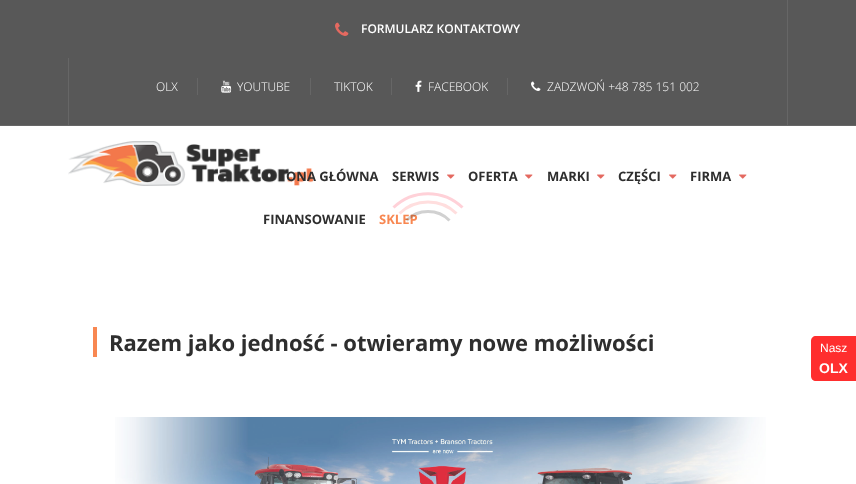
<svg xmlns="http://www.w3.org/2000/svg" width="856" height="484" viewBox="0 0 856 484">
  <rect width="100%" height="100%" fill="#ffffff"/>
  <rect x="0" y="0" width="856" height="125" fill="#585858"/>
  <rect x="0" y="125" width="856" height="1" fill="#666666"/>
  <rect x="787" y="0" width="1" height="125" fill="#666666"/>
  <image x="335" y="22" width="14" height="14" href="img1.png"/>
  <text x="361" y="33" font-family="Open Sans" font-size="12" font-weight="600" fill="#ffffff">FORMULARZ KONTAKTOWY</text>
  <rect x="68" y="58" width="1" height="67" fill="#666666"/>
  <rect x="197" y="78" width="1" height="17" fill="#666666"/>
  <text x="156" y="91" font-family="Open Sans" font-size="12" font-weight="300" fill="#ffffff">OLX</text>
  <rect x="310" y="78" width="1" height="17" fill="#666666"/>
  <image x="221" y="80" width="11" height="13" href="img2.png"/>
  <text x="237" y="91" font-family="Open Sans" font-size="12" font-weight="300" fill="#ffffff">YOUTUBE</text>
  <rect x="391" y="78" width="1" height="17" fill="#666666"/>
  <text x="334" y="91" font-family="Open Sans" font-size="12" font-weight="300" fill="#ffffff">TIKTOK</text>
  <rect x="507" y="78" width="1" height="17" fill="#666666"/>
  <image x="415" y="80" width="7" height="12" href="img3.png"/>
  <text x="428" y="91" font-family="Open Sans" font-size="12" font-weight="300" fill="#ffffff">FACEBOOK</text>
  <image x="531" y="81" width="10" height="10" href="img4.png"/>
  <text x="547" y="91" font-family="Open Sans" font-size="12" font-weight="300" fill="#ffffff">ZADZWOŃ +48 785 151 002</text>
  <image x="68" y="141" width="245" height="45" href="img5.png"/>
  <text x="286" y="181" font-family="Open Sans" font-size="13" font-weight="bold" fill="#2e2e2e">ONA GŁÓWNA</text>
  <text x="392" y="181" font-family="Open Sans" font-size="13" font-weight="bold" fill="#2e2e2e">SERWIS</text>
  <image x="447" y="174" width="8" height="5" href="img6.png"/>
  <text x="468" y="181" font-family="Open Sans" font-size="13" font-weight="bold" fill="#2e2e2e">OFERTA</text>
  <image x="525" y="174" width="8" height="5" href="img6.png"/>
  <text x="547" y="181" font-family="Open Sans" font-size="13" font-weight="bold" fill="#2e2e2e">MARKI</text>
  <image x="597" y="174" width="8" height="5" href="img6.png"/>
  <text x="618" y="181" font-family="Open Sans" font-size="13" font-weight="bold" fill="#2e2e2e">CZĘŚCI</text>
  <image x="669" y="174" width="8" height="5" href="img6.png"/>
  <text x="690" y="181" font-family="Open Sans" font-size="13" font-weight="bold" fill="#2e2e2e">FIRMA</text>
  <image x="739" y="174" width="8" height="5" href="img6.png"/>
  <text x="263" y="224" font-family="Open Sans" font-size="13" font-weight="bold" fill="#2e2e2e">FINANSOWANIE</text>
  <text x="379" y="224" font-family="Open Sans" font-size="13" font-weight="bold" fill="#f88751">SKLEP</text>
  <path d="M393.5 207.5C412.5 189 443.5 189 462.5 207.5" fill="none" stroke="#ffd1d8" stroke-width="3"/>
  <path d="M399.5 213.5C415 198 441 198 456.5 213.5" fill="none" stroke="#ffdede" stroke-width="3"/>
  <path d="M406.5 220.5C418 208.5 438 208.5 449.5 220.5" fill="none" stroke="#000000" stroke-opacity="0.18" stroke-width="3"/>
  <rect x="93" y="327" width="4" height="30" fill="#f88751"/>
  <text x="109" y="351" font-family="Open Sans" font-size="22" font-weight="bold" fill="#2e2e2e">Razem jako jedność - otwieramy nowe możliwości</text>
  <image x="115" y="417" width="651" height="67" href="img7.png"/>
  <path d="M816 336H856V381H816C813 381 811 379 811 376V341C811 338 813 336 816 336Z" fill="#ff2e2e"/>
  <text x="820" y="352" font-family="Liberation Sans" font-size="12" fill="#ffffff">Nasz</text>
  <text x="819" y="373" font-family="Liberation Sans" font-size="14" font-weight="bold" fill="#ffffff">OLX</text>
</svg>
